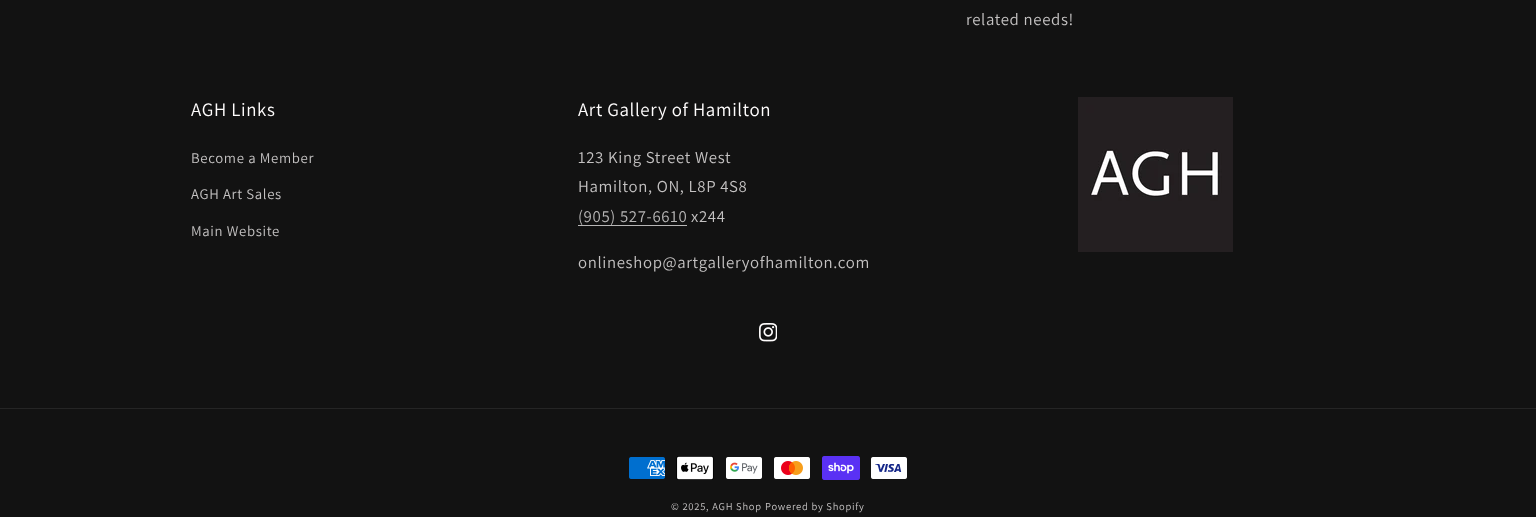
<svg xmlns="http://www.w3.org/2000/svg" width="1536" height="517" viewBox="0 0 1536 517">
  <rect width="100%" height="100%" fill="#121212"/>
  <text x="966" y="25" font-family="Assistant" font-size="16.75" letter-spacing="0.65" fill="#c4c2c2">related needs!</text>
  <text x="191" y="116" font-family="Assistant" font-size="18.9" letter-spacing="0.65" fill="#fffdfd">AGH Links</text>
  <text x="191" y="163" font-family="Assistant" font-size="14.75" letter-spacing="0.65" fill="#c4c2c2">Become a Member</text>
  <text x="191" y="199" font-family="Assistant" font-size="14.75" letter-spacing="0.65" fill="#c4c2c2">AGH Art Sales</text>
  <text x="191" y="236" font-family="Assistant" font-size="14.75" letter-spacing="0.65" fill="#c4c2c2">Main Website</text>
  <text x="578" y="116" font-family="Assistant" font-size="18.9" letter-spacing="0.65" fill="#fffdfd">Art Gallery of Hamilton</text>
  <text x="578" y="163" font-family="Assistant" font-size="16.75" letter-spacing="0.65" fill="#c4c2c2">123 King Street West</text>
  <text x="578" y="192" font-family="Assistant" font-size="16.75" letter-spacing="0.65" fill="#c4c2c2">Hamilton, ON, L8P 4S8</text>
  <text x="578" y="222" font-family="Assistant" font-size="16.75" letter-spacing="0.65" fill="#b8b7b7">(905) 527-6610</text>
  <rect x="578" y="225" width="109" height="1" fill="#b8b7b7"/>
  <text x="691" y="222" font-family="Assistant" font-size="16.75" letter-spacing="0.65" fill="#c4c2c2">x244</text>
  <text x="578" y="268" font-family="Assistant" font-size="16.75" letter-spacing="0.65" fill="#c4c2c2">onlineshop@artgalleryofhamilton.com</text>
  <image x="1078" y="97" width="155" height="155" href="img1.png"/>
  <image x="759" y="323" width="18" height="19" href="img2.png"/>
  <rect x="0" y="408" width="1536" height="1" fill="#252525"/>
  <image x="629" y="457" width="36" height="22" href="img3.png"/>
  <image x="676" y="456" width="38" height="24" href="img4.png"/>
  <image x="726" y="457" width="36" height="22" href="img5.png"/>
  <image x="774" y="457" width="36" height="22" href="img6.png"/>
  <image x="822" y="456" width="38" height="24" href="img7.png"/>
  <image x="871" y="457" width="36" height="22" href="img8.png"/>
  <text x="671" y="510" font-family="Assistant" font-size="10.5" letter-spacing="0.75" fill="#c4c2c2">© 2025, AGH Shop</text>
  <text x="765" y="510" font-family="Assistant" font-size="10.5" letter-spacing="0.75" fill="#c4c2c2">Powered by Shopify</text>
</svg>
